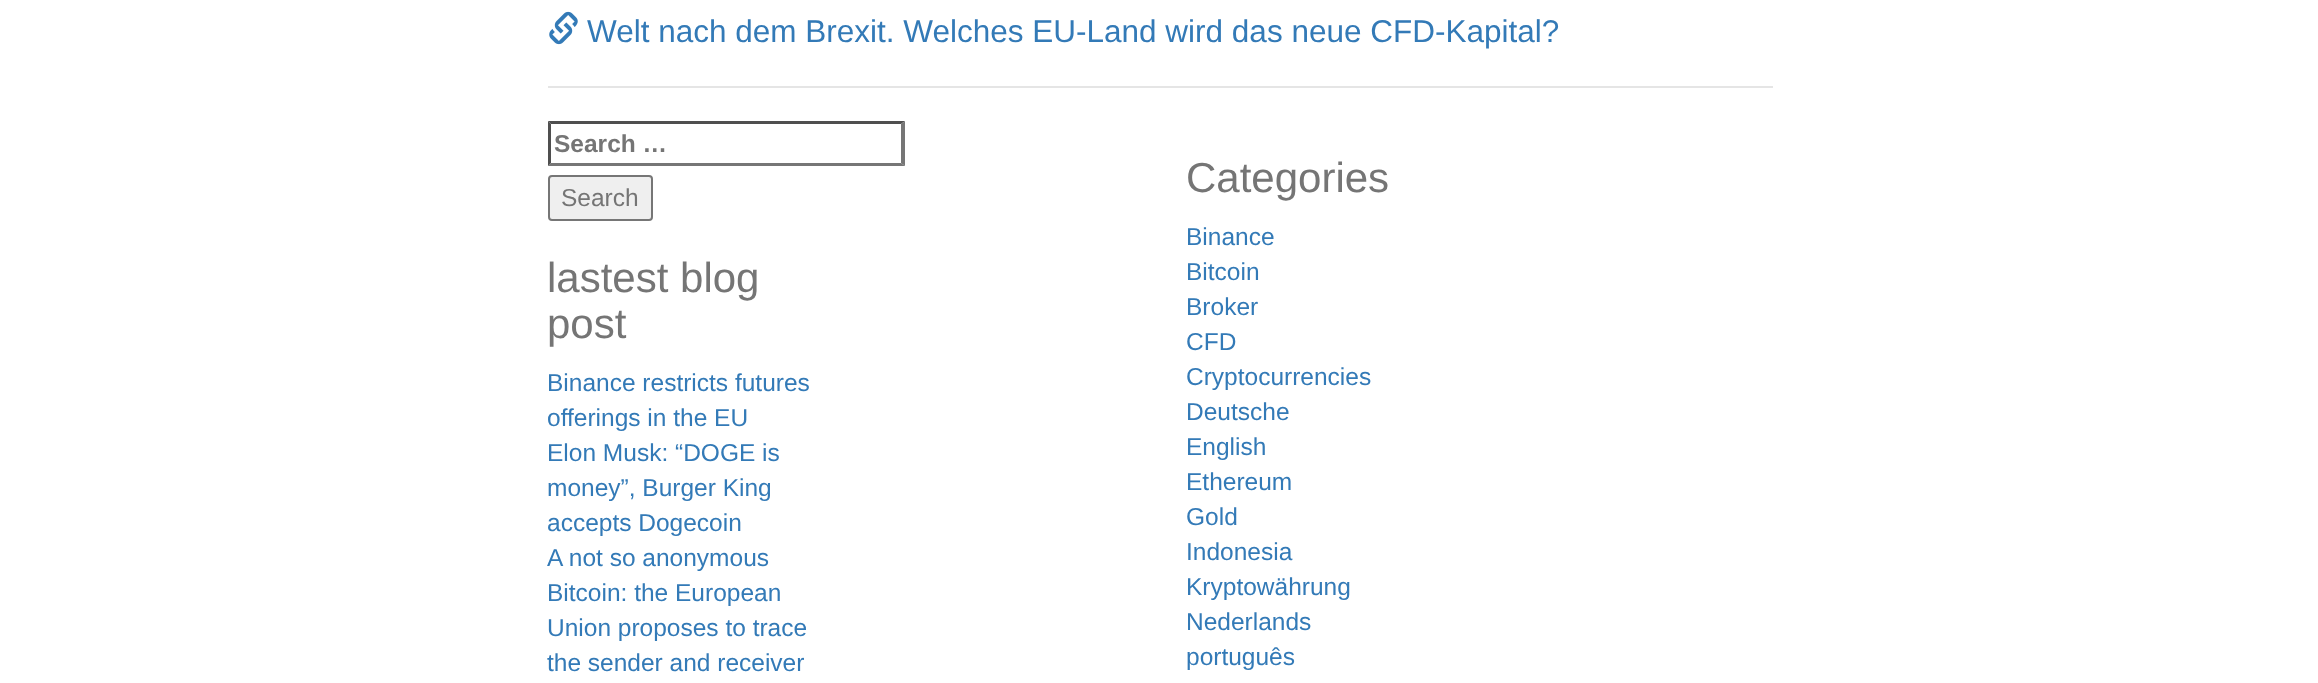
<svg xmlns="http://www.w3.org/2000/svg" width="2318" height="683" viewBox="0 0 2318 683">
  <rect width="100%" height="100%" fill="#ffffff"/>
  <image x="549" y="11" width="29" height="34" href="img1.png"/>
  <text x="587" y="42" font-family="Liberation Sans" font-size="31.5" fill="#337ab7">Welt nach dem Brexit. Welches EU-Land wird das neue CFD-Kapital?</text>
  <rect x="548" y="86" width="1225" height="2" fill="#e5e5e5"/>
  <path d="M548 121H905L901 124H551Z" fill="#4f4f4f"/>
  <path d="M905 121V166L901 163V124Z" fill="#767676"/>
  <path d="M905 166H548L551 163H901Z" fill="#767676"/>
  <path d="M548 166V121L551 124V163Z" fill="#4f4f4f"/>
  <text x="554" y="152" font-family="Liberation Sans" font-size="24.5" font-weight="bold" fill="#757575">Search …</text>
  <rect x="549" y="176" width="103" height="44" rx="3" fill="#efefef" stroke="#767676" stroke-width="2"/>
  <text x="561" y="206" font-family="Liberation Sans" font-size="24.5" fill="#757575">Search</text>
  <text x="547" y="292" font-family="Liberation Sans" font-size="42" fill="#757575">lastest blog</text>
  <text x="547" y="338" font-family="Liberation Sans" font-size="42" fill="#757575">post</text>
  <text x="547" y="391" font-family="Liberation Sans" font-size="24.5" fill="#337ab7">Binance restricts futures</text>
  <text x="547" y="426" font-family="Liberation Sans" font-size="24.5" fill="#337ab7">offerings in the EU</text>
  <text x="547" y="461" font-family="Liberation Sans" font-size="24.5" fill="#337ab7">Elon Musk: “DOGE is</text>
  <text x="547" y="496" font-family="Liberation Sans" font-size="24.5" fill="#337ab7">money”, Burger King</text>
  <text x="547" y="531" font-family="Liberation Sans" font-size="24.5" fill="#337ab7">accepts Dogecoin</text>
  <text x="547" y="566" font-family="Liberation Sans" font-size="24.5" fill="#337ab7">A not so anonymous</text>
  <text x="547" y="601" font-family="Liberation Sans" font-size="24.5" fill="#337ab7">Bitcoin: the European</text>
  <text x="547" y="636" font-family="Liberation Sans" font-size="24.5" fill="#337ab7">Union proposes to trace</text>
  <text x="547" y="671" font-family="Liberation Sans" font-size="24.5" fill="#337ab7">the sender and receiver</text>
  <text x="1186" y="192" font-family="Liberation Sans" font-size="42" fill="#757575">Categories</text>
  <text x="1186" y="245" font-family="Liberation Sans" font-size="24.5" fill="#337ab7">Binance</text>
  <text x="1186" y="280" font-family="Liberation Sans" font-size="24.5" fill="#337ab7">Bitcoin</text>
  <text x="1186" y="315" font-family="Liberation Sans" font-size="24.5" fill="#337ab7">Broker</text>
  <text x="1186" y="350" font-family="Liberation Sans" font-size="24.5" fill="#337ab7">CFD</text>
  <text x="1186" y="385" font-family="Liberation Sans" font-size="24.5" fill="#337ab7">Cryptocurrencies</text>
  <text x="1186" y="420" font-family="Liberation Sans" font-size="24.5" fill="#337ab7">Deutsche</text>
  <text x="1186" y="455" font-family="Liberation Sans" font-size="24.5" fill="#337ab7">English</text>
  <text x="1186" y="490" font-family="Liberation Sans" font-size="24.5" fill="#337ab7">Ethereum</text>
  <text x="1186" y="525" font-family="Liberation Sans" font-size="24.5" fill="#337ab7">Gold</text>
  <text x="1186" y="560" font-family="Liberation Sans" font-size="24.5" fill="#337ab7">Indonesia</text>
  <text x="1186" y="595" font-family="Liberation Sans" font-size="24.5" fill="#337ab7">Kryptowährung</text>
  <text x="1186" y="630" font-family="Liberation Sans" font-size="24.5" fill="#337ab7">Nederlands</text>
  <text x="1186" y="665" font-family="Liberation Sans" font-size="24.5" fill="#337ab7">português</text>
</svg>
